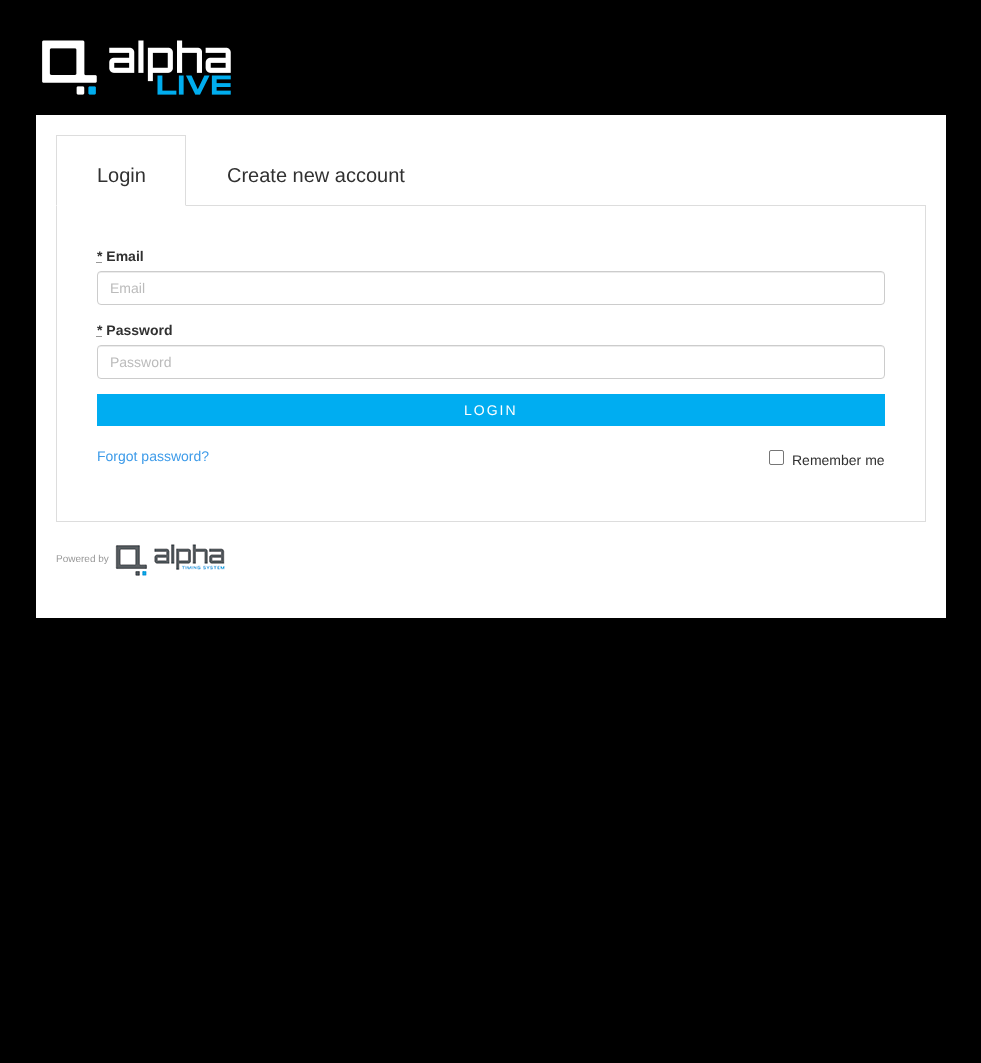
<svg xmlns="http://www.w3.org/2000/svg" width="981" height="1063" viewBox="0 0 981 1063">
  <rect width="100%" height="100%" fill="#000000"/>
  <image x="42" y="40" width="189" height="55" href="img1.png"/>
  <rect x="36" y="115" width="910" height="503" fill="#ffffff"/>
  <rect x="186" y="205" width="740" height="1" fill="#dddddd"/>
  <rect x="56" y="135" width="130" height="1" fill="#dddddd"/>
  <path d="M186 135V206L185 205V136Z" fill="#dddddd"/>
  <path d="M56 206V135L57 136V205Z" fill="#dddddd"/>
  <text x="97" y="182" font-family="Liberation Sans" font-size="20" fill="#313131">Login</text>
  <text x="227" y="182" font-family="Liberation Sans" font-size="20" fill="#313131">Create new account</text>
  <rect x="925" y="206" width="1" height="316" fill="#dddddd"/>
  <rect x="56" y="521" width="870" height="1" fill="#dddddd"/>
  <rect x="56" y="206" width="1" height="316" fill="#dddddd"/>
  <text x="97" y="261" font-family="Liberation Sans" font-size="14" font-weight="bold" fill="#313131">* Email</text>
  <path d="M96.5 262.5H97.5M98.5 262.5H99.5M100.5 262.5H101.5" fill="none" stroke="#313131"/>
  <path d="M101 273H881C883 273 884 274 884 276C884 274 883 272 881 272H101C99 272 98 274 98 276C98 274 99 273 101 273Z" fill="#ececec"/>
  <rect x="97.5" y="271.5" width="787" height="33" rx="3.5" fill="none" stroke="#cccccc"/>
  <text x="110" y="293" font-family="Liberation Sans" font-size="14" fill="#bbbbbb">Email</text>
  <text x="97" y="335" font-family="Liberation Sans" font-size="14" font-weight="bold" fill="#313131">* Password</text>
  <path d="M96.5 336.5H97.5M98.5 336.5H99.5M100.5 336.5H101.5" fill="none" stroke="#313131"/>
  <path d="M101 347H881C883 347 884 348 884 350C884 348 883 346 881 346H101C99 346 98 348 98 350C98 348 99 347 101 347Z" fill="#ececec"/>
  <rect x="97.5" y="345.5" width="787" height="33" rx="3.5" fill="none" stroke="#cccccc"/>
  <text x="110" y="367" font-family="Liberation Sans" font-size="14" fill="#bbbbbb">Password</text>
  <rect x="97" y="394" width="788" height="32" fill="#00adf1"/>
  <text x="464" y="415" font-family="Liberation Sans" font-size="14" letter-spacing="2" fill="#ffffff">LOGIN</text>
  <text x="97" y="461" font-family="Liberation Sans" font-size="14" fill="#3d9be9">Forgot password?</text>
  <rect x="769.5" y="450.5" width="14" height="14" rx="1.5" fill="none" stroke="#767676"/>
  <text x="792" y="465" font-family="Liberation Sans" font-size="14" fill="#313131">Remember me</text>
  <text x="56" y="562" font-family="Liberation Sans" font-size="10" fill="#999999">Powered by</text>
  <image x="115" y="544" width="110" height="32" href="img2.png"/>
</svg>
